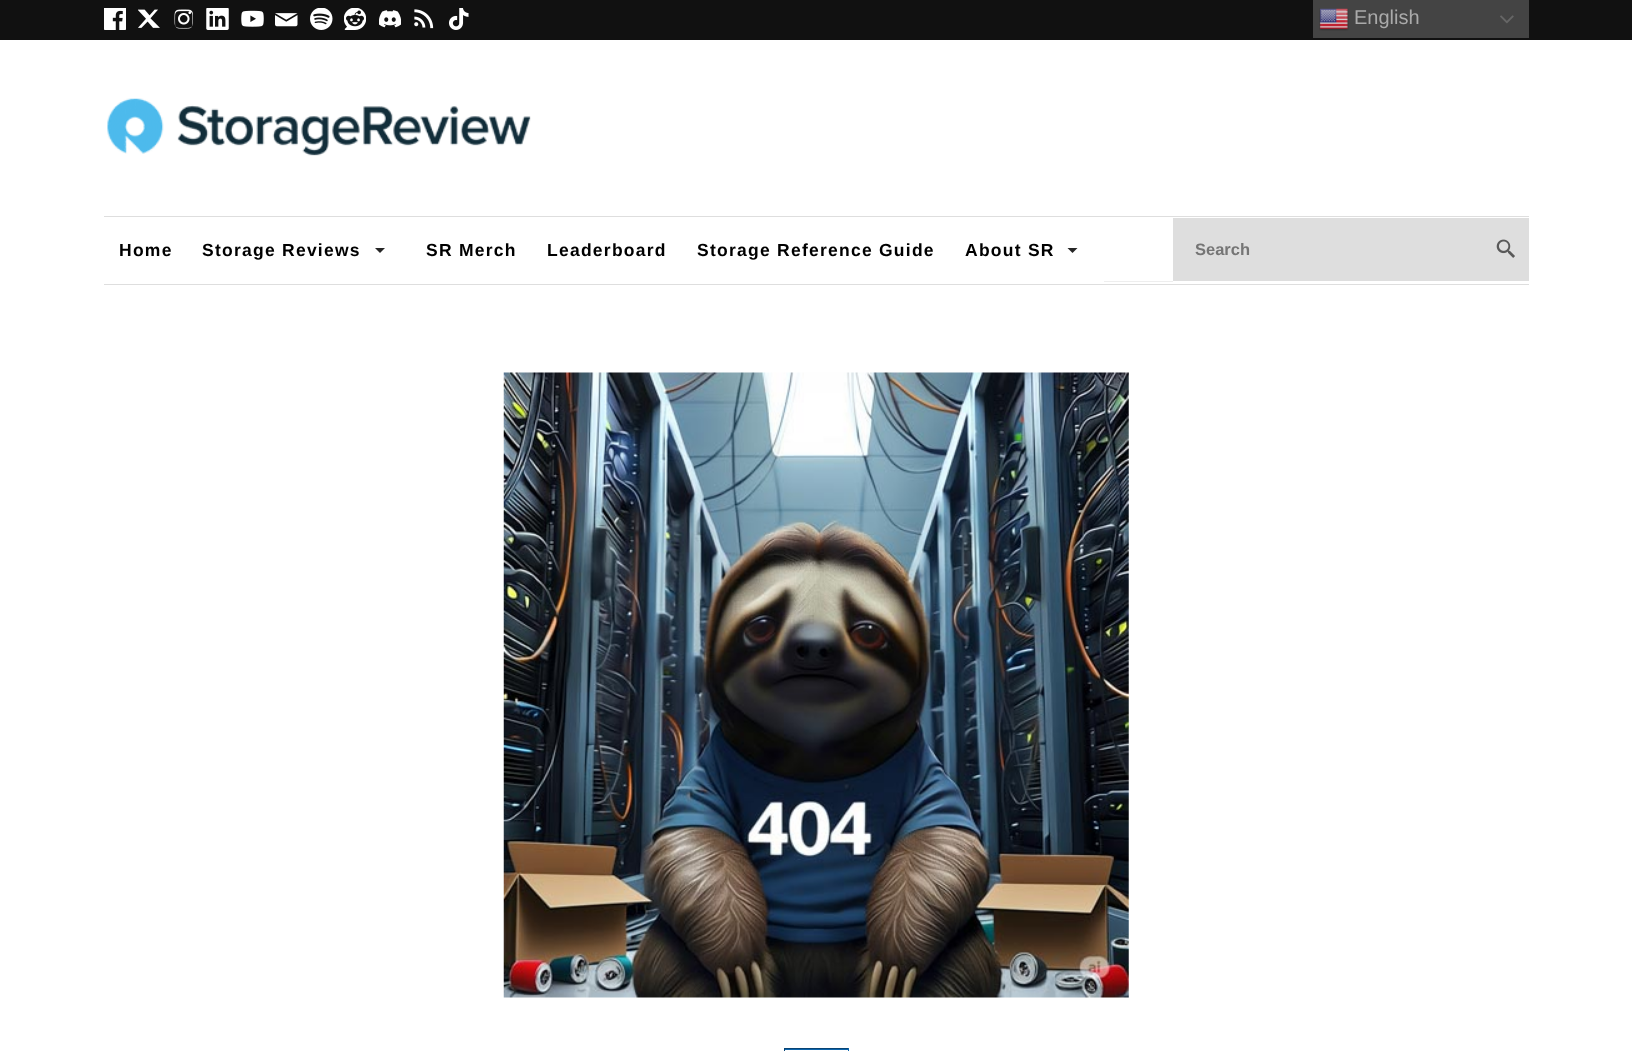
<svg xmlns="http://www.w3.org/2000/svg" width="1632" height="1057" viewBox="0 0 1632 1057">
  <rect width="100%" height="100%" fill="#ffffff"/>
  <rect x="0" y="0" width="1632" height="40" fill="#111111"/>
  <image x="104" y="8" width="22" height="22" href="img1.png"/>
  <image x="138" y="9" width="22" height="19" href="img2.png"/>
  <image x="174" y="9" width="19" height="20" href="img3.png"/>
  <image x="206" y="8" width="23" height="22" href="img4.png"/>
  <image x="241" y="10" width="23" height="17" href="img5.png"/>
  <image x="275" y="13" width="23" height="14" href="img6.png"/>
  <image x="310" y="8" width="23" height="22" href="img7.png"/>
  <image x="344" y="8" width="22" height="22" href="img8.png"/>
  <image x="379" y="10" width="22" height="18" href="img9.png"/>
  <image x="414" y="9" width="20" height="20" href="img10.png"/>
  <image x="449" y="8" width="20" height="22" href="img11.png"/>
  <rect x="1313" y="0" width="216" height="38" fill="#444444"/>
  <image x="1319" y="8" width="30" height="23" href="img12.png"/>
  <text x="1354" y="24" font-family="Liberation Sans" font-size="20" fill="#aaaaaa">English</text>
  <image x="1500" y="15" width="14" height="9" href="img13.png"/>
  <image x="107" y="98" width="424" height="58" href="img14.png"/>
  <rect x="104" y="216" width="1425" height="1" fill="#dedede"/>
  <rect x="104" y="284" width="1425" height="1" fill="#dedede"/>
  <rect x="1104" y="281" width="69" height="1" fill="#eeeeee"/>
  <text x="119" y="256" font-family="Liberation Sans" font-size="17.5" font-weight="bold" letter-spacing="1.25" fill="#000000">Home</text>
  <text x="202" y="256" font-family="Liberation Sans" font-size="17.5" font-weight="bold" letter-spacing="1.25" fill="#000000">Storage Reviews</text>
  <path d="M375 248H385L380 253Z" fill="#262626"/>
  <text x="426" y="256" font-family="Liberation Sans" font-size="17.5" font-weight="bold" letter-spacing="1.25" fill="#000000">SR Merch</text>
  <text x="547" y="256" font-family="Liberation Sans" font-size="17.5" font-weight="bold" letter-spacing="1.25" fill="#000000">Leaderboard</text>
  <text x="697" y="256" font-family="Liberation Sans" font-size="17.5" font-weight="bold" letter-spacing="1.25" fill="#000000">Storage Reference Guide</text>
  <text x="965" y="256" font-family="Liberation Sans" font-size="17.5" font-weight="bold" letter-spacing="1.25" fill="#000000">About SR</text>
  <path d="M1067.5 248H1077.5L1072.5 253Z" fill="#262626"/>
  <rect x="1173" y="218" width="356" height="63" fill="#dedede"/>
  <text x="1195" y="255" font-family="Liberation Sans" font-size="16.5" font-weight="bold" fill="#757575">Search</text>
  <image x="1496" y="239" width="19" height="19" href="img15.png"/>
  <image x="503" y="372" width="626" height="626" href="img16.png"/>
  <rect x="784" y="1048" width="65" height="1" fill="#084373"/>
  <rect x="848" y="1048" width="1" height="3" fill="#0c65ad"/>
  <rect x="784" y="1049" width="65" height="1" fill="#0c65ad"/>
  <rect x="784" y="1048" width="1" height="3" fill="#084373"/>
</svg>
